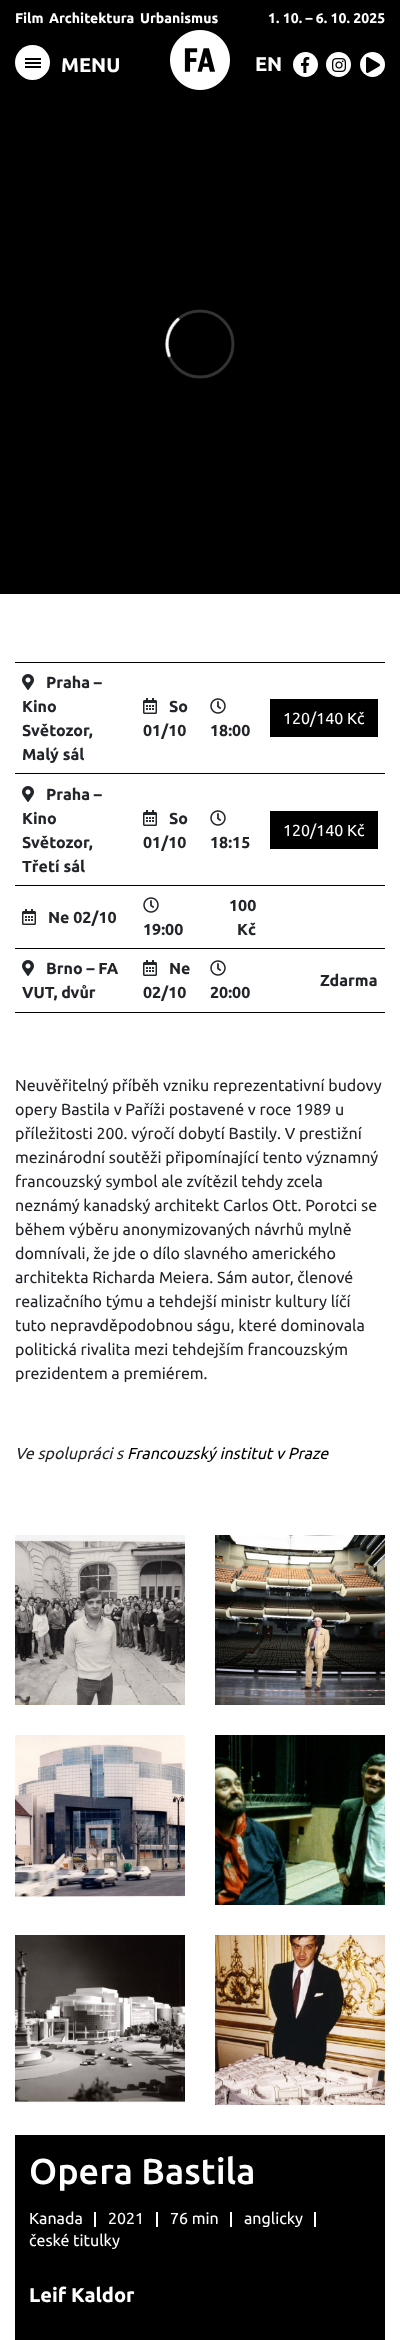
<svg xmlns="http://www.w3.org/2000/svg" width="400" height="2340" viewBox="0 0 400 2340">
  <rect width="100%" height="100%" fill="#ffffff"/>
  <rect x="0" y="0" width="400" height="94" fill="#000000"/>
  <text x="15" y="23" font-family="Ubuntu" font-size="14" font-weight="bold" fill="#ffffff">Film</text>
  <text x="49" y="23" font-family="Ubuntu" font-size="14" font-weight="bold" fill="#ffffff">Architektura</text>
  <text x="140" y="23" font-family="Ubuntu" font-size="14" font-weight="bold" fill="#ffffff">Urbanismus</text>
  <text x="268" y="23" font-family="Ubuntu" font-size="14" font-weight="bold" fill="#ffffff">1. 10. – 6. 10. 2025</text>
  <circle cx="32.5" cy="62.5" r="17.5" fill="#ffffff"/>
  <rect x="25" y="58" width="16" height="2" fill="#000000"/>
  <rect x="25" y="62" width="16" height="2" fill="#000000"/>
  <rect x="25" y="66" width="16" height="2" fill="#000000"/>
  <text x="61" y="72" font-family="Ubuntu" font-size="20" font-weight="bold" fill="#ffffff">MENU</text>
  <image x="170" y="30" width="60" height="60" href="img1.png"/>
  <text x="255" y="71" font-family="Ubuntu" font-size="20" font-weight="bold" fill="#ffffff">EN</text>
  <circle cx="305.5" cy="64.5" r="12.5" fill="#ffffff"/>
  <image x="301" y="57" width="9" height="16" href="img2.png"/>
  <circle cx="338.5" cy="64.5" r="12.5" fill="#ffffff"/>
  <image x="332" y="58" width="14" height="14" href="img3.png"/>
  <circle cx="372.5" cy="64.5" r="12.5" fill="#ffffff"/>
  <image x="366" y="57" width="14" height="16" href="img4.png"/>
  <image x="0" y="94" width="400" height="500" href="img5.png"/>
  <image x="22" y="674" width="12" height="16" href="img6.png"/>
  <text x="46" y="688" font-family="Ubuntu" font-size="16" font-weight="bold" fill="#212529">Praha –</text>
  <text x="22" y="712" font-family="Ubuntu" font-size="16" font-weight="bold" fill="#212529">Kino</text>
  <text x="22" y="736" font-family="Ubuntu" font-size="16" font-weight="bold" fill="#212529">Světozor,</text>
  <text x="22" y="760" font-family="Ubuntu" font-size="16" font-weight="bold" fill="#212529">Malý sál</text>
  <image x="143" y="698" width="14" height="16" href="img7.png"/>
  <text x="169" y="712" font-family="Ubuntu" font-size="16" font-weight="bold" fill="#212529">So</text>
  <text x="143" y="736" font-family="Ubuntu" font-size="16" font-weight="bold" fill="#212529">01/10</text>
  <rect x="15" y="662" width="370" height="1" fill="#000000"/>
  <rect x="270" y="699" width="108" height="38" fill="#000000"/>
  <text x="283" y="724" font-family="Ubuntu" font-size="16" fill="#ffffff">120/140 Kč</text>
  <image x="210" y="698" width="16" height="16" href="img8.png"/>
  <text x="210" y="736" font-family="Ubuntu" font-size="16" font-weight="bold" fill="#212529">18:00</text>
  <image x="22" y="786" width="12" height="16" href="img6.png"/>
  <text x="46" y="800" font-family="Ubuntu" font-size="16" font-weight="bold" fill="#212529">Praha –</text>
  <text x="22" y="824" font-family="Ubuntu" font-size="16" font-weight="bold" fill="#212529">Kino</text>
  <text x="22" y="848" font-family="Ubuntu" font-size="16" font-weight="bold" fill="#212529">Světozor,</text>
  <text x="22" y="872" font-family="Ubuntu" font-size="16" font-weight="bold" fill="#212529">Třetí sál</text>
  <image x="143" y="810" width="14" height="16" href="img7.png"/>
  <text x="169" y="824" font-family="Ubuntu" font-size="16" font-weight="bold" fill="#212529">So</text>
  <text x="143" y="848" font-family="Ubuntu" font-size="16" font-weight="bold" fill="#212529">01/10</text>
  <rect x="15" y="773" width="370" height="1" fill="#000000"/>
  <rect x="270" y="811" width="108" height="38" fill="#000000"/>
  <text x="283" y="836" font-family="Ubuntu" font-size="16" fill="#ffffff">120/140 Kč</text>
  <image x="210" y="810" width="16" height="16" href="img8.png"/>
  <text x="210" y="848" font-family="Ubuntu" font-size="16" font-weight="bold" fill="#212529">18:15</text>
  <image x="22" y="909" width="14" height="16" href="img7.png"/>
  <text x="48" y="923" font-family="Ubuntu" font-size="16" font-weight="bold" fill="#212529">Ne 02/10</text>
  <rect x="15" y="885" width="370" height="1" fill="#000000"/>
  <text x="229" y="911" font-family="Ubuntu" font-size="16" font-weight="bold" fill="#212529">100</text>
  <text x="237" y="935" font-family="Ubuntu" font-size="16" font-weight="bold" fill="#212529">Kč</text>
  <image x="143" y="897" width="16" height="16" href="img8.png"/>
  <text x="143" y="935" font-family="Ubuntu" font-size="16" font-weight="bold" fill="#212529">19:00</text>
  <image x="22" y="960" width="12" height="16" href="img6.png"/>
  <text x="46" y="974" font-family="Ubuntu" font-size="16" font-weight="bold" fill="#212529">Brno – FA</text>
  <text x="22" y="998" font-family="Ubuntu" font-size="16" font-weight="bold" fill="#212529">VUT, dvůr</text>
  <image x="143" y="960" width="14" height="16" href="img7.png"/>
  <text x="169" y="974" font-family="Ubuntu" font-size="16" font-weight="bold" fill="#212529">Ne</text>
  <text x="143" y="998" font-family="Ubuntu" font-size="16" font-weight="bold" fill="#212529">02/10</text>
  <rect x="15" y="948" width="370" height="1" fill="#000000"/>
  <rect x="15" y="1012" width="370" height="1" fill="#000000"/>
  <text x="320" y="986" font-family="Ubuntu" font-size="16" font-weight="bold" fill="#212529">Zdarma</text>
  <image x="210" y="960" width="16" height="16" href="img8.png"/>
  <text x="210" y="998" font-family="Ubuntu" font-size="16" font-weight="bold" fill="#212529">20:00</text>
  <text x="15" y="1091" font-family="Ubuntu" font-size="16" fill="#212529">Neuvěřitelný příběh vzniku reprezentativní budovy</text>
  <text x="15" y="1115" font-family="Ubuntu" font-size="16" fill="#212529">opery Bastila v Paříži postavené v roce 1989 u</text>
  <text x="15" y="1139" font-family="Ubuntu" font-size="16" fill="#212529">příležitosti 200. výročí dobytí Bastily. V prestižní</text>
  <text x="15" y="1163" font-family="Ubuntu" font-size="16" fill="#212529">mezinárodní soutěži připomínající tento významný</text>
  <text x="15" y="1187" font-family="Ubuntu" font-size="16" fill="#212529">francouzský symbol ale zvítězil tehdy zcela</text>
  <text x="15" y="1211" font-family="Ubuntu" font-size="16" fill="#212529">neznámý kanadský architekt Carlos Ott. Porotci se</text>
  <text x="15" y="1235" font-family="Ubuntu" font-size="16" fill="#212529">během výběru anonymizovaných návrhů mylně</text>
  <text x="15" y="1259" font-family="Ubuntu" font-size="16" fill="#212529">domnívali, že jde o dílo slavného amerického</text>
  <text x="15" y="1283" font-family="Ubuntu" font-size="16" fill="#212529">architekta Richarda Meiera. Sám autor, členové</text>
  <text x="15" y="1307" font-family="Ubuntu" font-size="16" fill="#212529">realizačního týmu a tehdejší ministr kultury líčí</text>
  <text x="15" y="1331" font-family="Ubuntu" font-size="16" fill="#212529">tuto nepravděpodobnou ságu, které dominovala</text>
  <text x="15" y="1355" font-family="Ubuntu" font-size="16" fill="#212529">politická rivalita mezi tehdejším francouzským</text>
  <text x="15" y="1379" font-family="Ubuntu" font-size="16" fill="#212529">prezidentem a premiérem.</text>
  <text x="15" y="1459" font-family="Ubuntu" font-size="16" font-style="italic" fill="#212529">Ve spolupráci s</text>
  <text x="127" y="1459" font-family="Ubuntu" font-size="16" font-style="italic" fill="#000000">Francouzský institut v Praze</text>
  <image x="15" y="1535" width="170" height="170" href="img9.png"/>
  <image x="215" y="1535" width="170" height="170" href="img10.png"/>
  <image x="15" y="1735" width="170" height="170" href="img11.png"/>
  <image x="215" y="1735" width="170" height="170" href="img12.png"/>
  <image x="15" y="1935" width="170" height="170" href="img13.png"/>
  <image x="215" y="1935" width="170" height="170" href="img14.png"/>
  <rect x="15" y="2135" width="370" height="205" fill="#000000"/>
  <text x="29" y="2184" font-family="Ubuntu" font-size="36" font-weight="500" fill="#ffffff">Opera Bastila</text>
  <text x="29" y="2224" font-family="Ubuntu" font-size="16" fill="#ffffff">Kanada</text>
  <rect x="94" y="2212" width="2" height="15" fill="#ffffff"/>
  <text x="108" y="2224" font-family="Ubuntu" font-size="16" fill="#ffffff">2021</text>
  <rect x="156" y="2212" width="2" height="15" fill="#ffffff"/>
  <text x="170" y="2224" font-family="Ubuntu" font-size="16" fill="#ffffff">76 min</text>
  <rect x="230" y="2212" width="2" height="15" fill="#ffffff"/>
  <text x="244" y="2224" font-family="Ubuntu" font-size="16" fill="#ffffff">anglicky</text>
  <rect x="314" y="2212" width="2" height="15" fill="#ffffff"/>
  <text x="29" y="2246" font-family="Ubuntu" font-size="16" fill="#ffffff">české titulky</text>
  <text x="29" y="2302" font-family="Ubuntu" font-size="20" font-weight="bold" fill="#ffffff">Leif Kaldor</text>
</svg>
